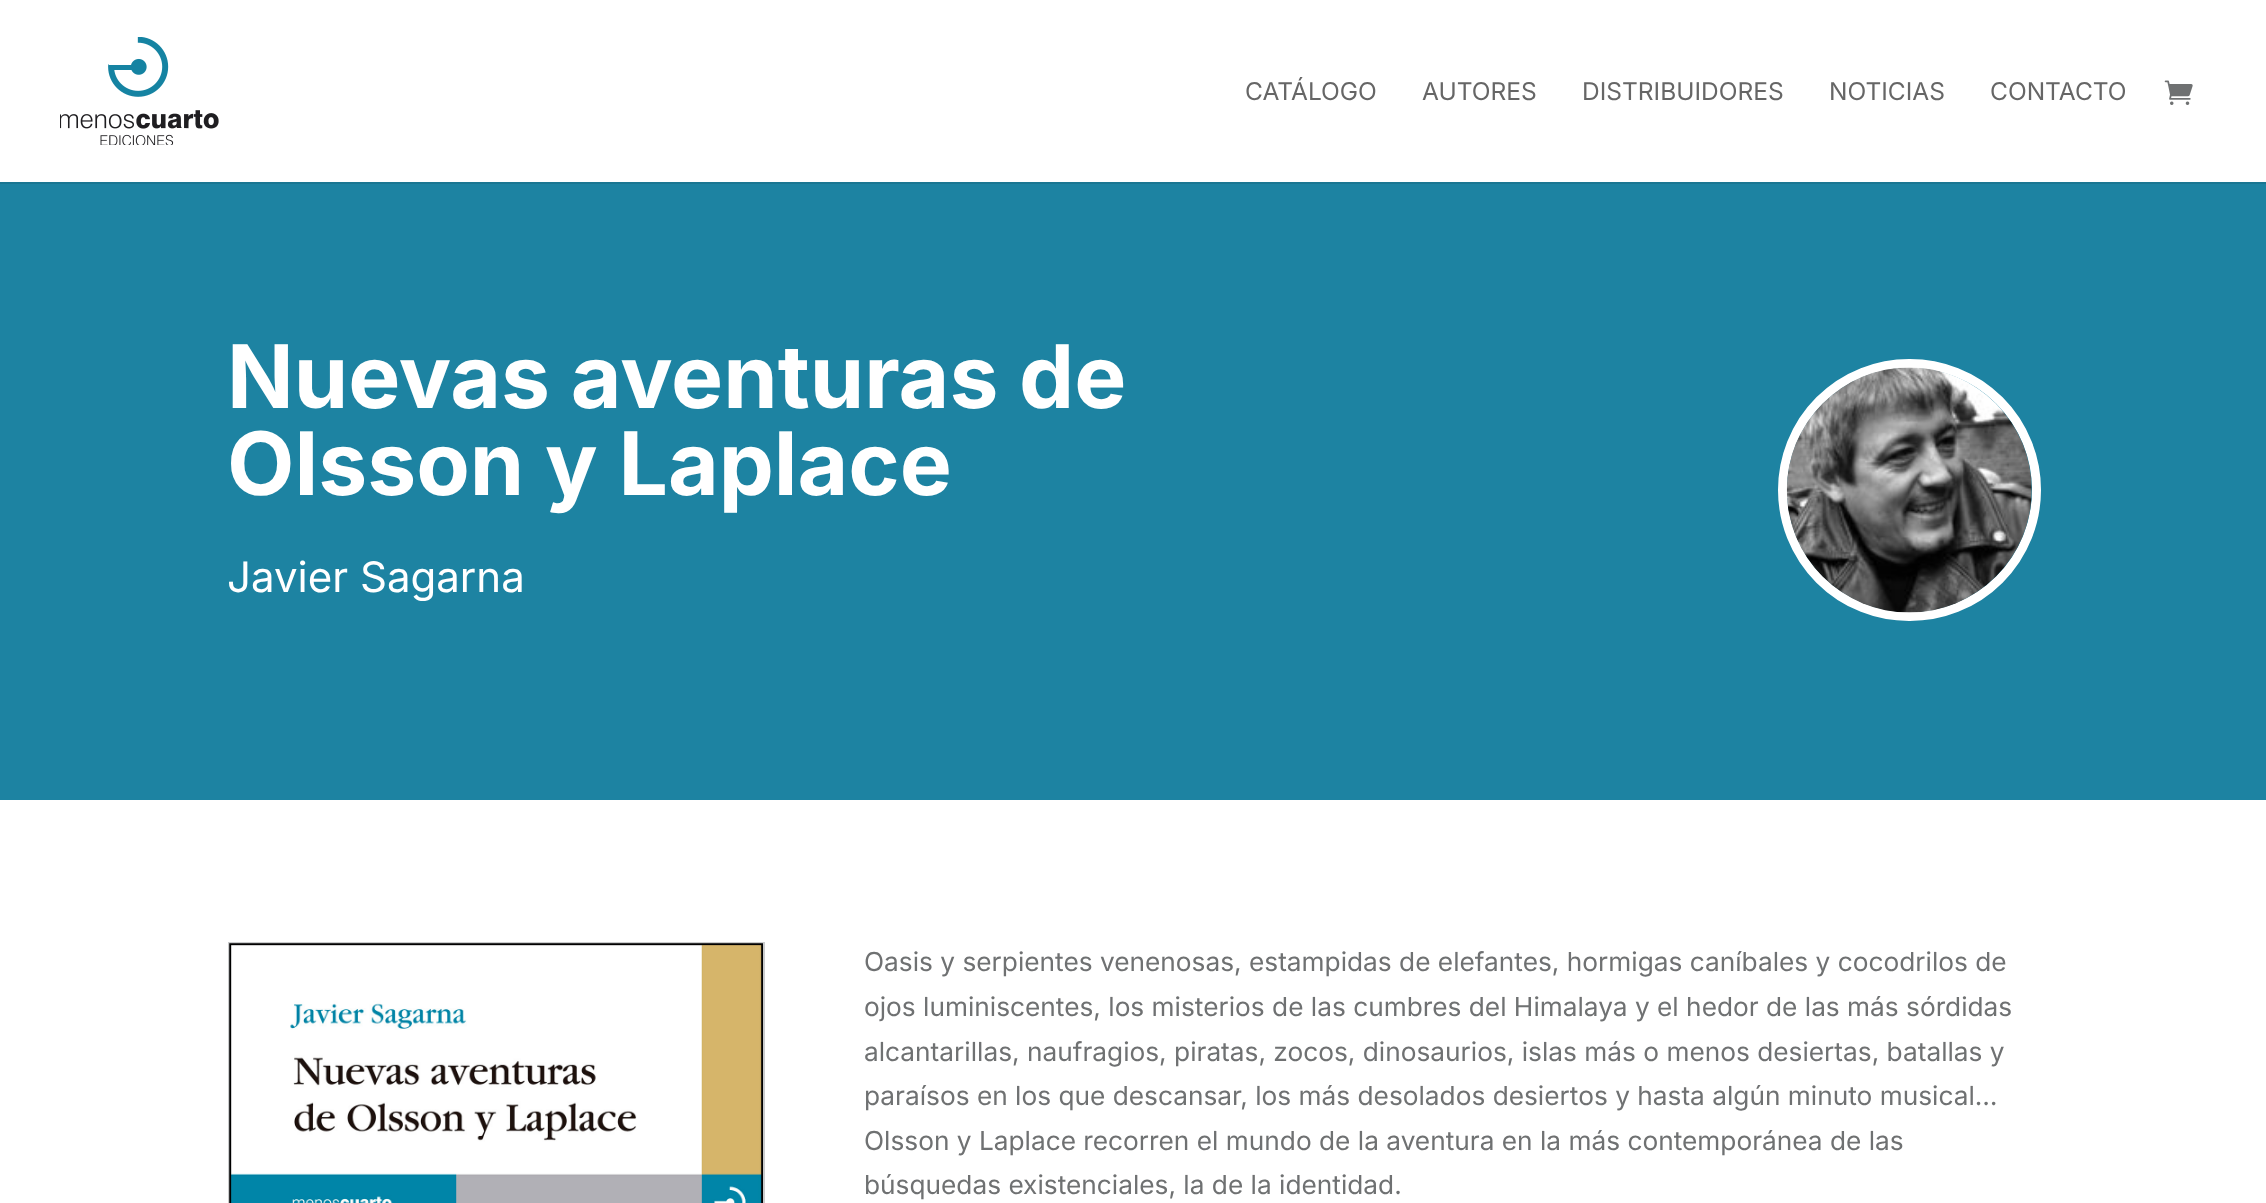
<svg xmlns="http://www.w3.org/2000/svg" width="2266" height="1203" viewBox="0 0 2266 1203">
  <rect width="100%" height="100%" fill="#ffffff"/>
  <rect x="0" y="182" width="2266" height="2" fill="#1a7692"/>
  <image x="60" y="37" width="159" height="108" href="img1.png"/>
  <text x="1245" y="100" font-family="Inter" font-size="24.5" fill="#666666">CATÁLOGO</text>
  <text x="1422" y="100" font-family="Inter" font-size="24.5" fill="#666666">AUTORES</text>
  <text x="1582" y="100" font-family="Inter" font-size="24.5" fill="#666666">DISTRIBUIDORES</text>
  <text x="1829" y="100" font-family="Inter" font-size="24.5" fill="#666666">NOTICIAS</text>
  <text x="1990" y="100" font-family="Inter" font-size="24.5" fill="#666666">CONTACTO</text>
  <image x="2164" y="80" width="29" height="25" href="img2.png"/>
  <rect x="0" y="184" width="2266" height="616" fill="#1d83a2"/>
  <text x="227" y="408" font-family="Inter" font-size="87.5" font-weight="bold" fill="#ffffff">Nuevas aventuras de</text>
  <text x="227" y="495" font-family="Inter" font-size="87.5" font-weight="bold" fill="#ffffff">Olsson y Laplace</text>
  <text x="227" y="592" font-family="Inter" font-size="42" fill="#ffffff">Javier</text>
  <text x="360" y="592" font-family="Inter" font-size="42" fill="#ffffff">Sagarna</text>
  <rect x="1782.5" y="363.5" width="254" height="253" rx="126.5" fill="none" stroke="#ffffff" stroke-width="9"/>
  <image x="1786" y="367" width="246" height="246" href="img3.png"/>
  <rect x="229" y="943" width="535" height="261" fill="none" stroke="#cacbcc" stroke-width="2"/>
  <image x="229" y="943" width="534" height="260" href="img4.png"/>
  <text x="864" y="971" font-family="Inter" font-size="26.25" fill="#6f7172">Oasis y serpientes venenosas, estampidas de elefantes, hormigas caníbales y cocodrilos de</text>
  <text x="864" y="1016" font-family="Inter" font-size="26.25" fill="#6f7172">ojos luminiscentes, los misterios de las cumbres del Himalaya y el hedor de las más sórdidas</text>
  <text x="864" y="1061" font-family="Inter" font-size="26.25" fill="#6f7172">alcantarillas, naufragios, piratas, zocos, dinosaurios, islas más o menos desiertas, batallas y</text>
  <text x="864" y="1105" font-family="Inter" font-size="26.25" fill="#6f7172">paraísos en los que descansar, los más desolados desiertos y hasta algún minuto musical…</text>
  <text x="864" y="1150" font-family="Inter" font-size="26.25" fill="#6f7172">Olsson y Laplace recorren el mundo de la aventura en la más contemporánea de las</text>
  <text x="864" y="1194" font-family="Inter" font-size="26.25" fill="#6f7172">búsquedas existenciales, la de la identidad.</text>
</svg>
